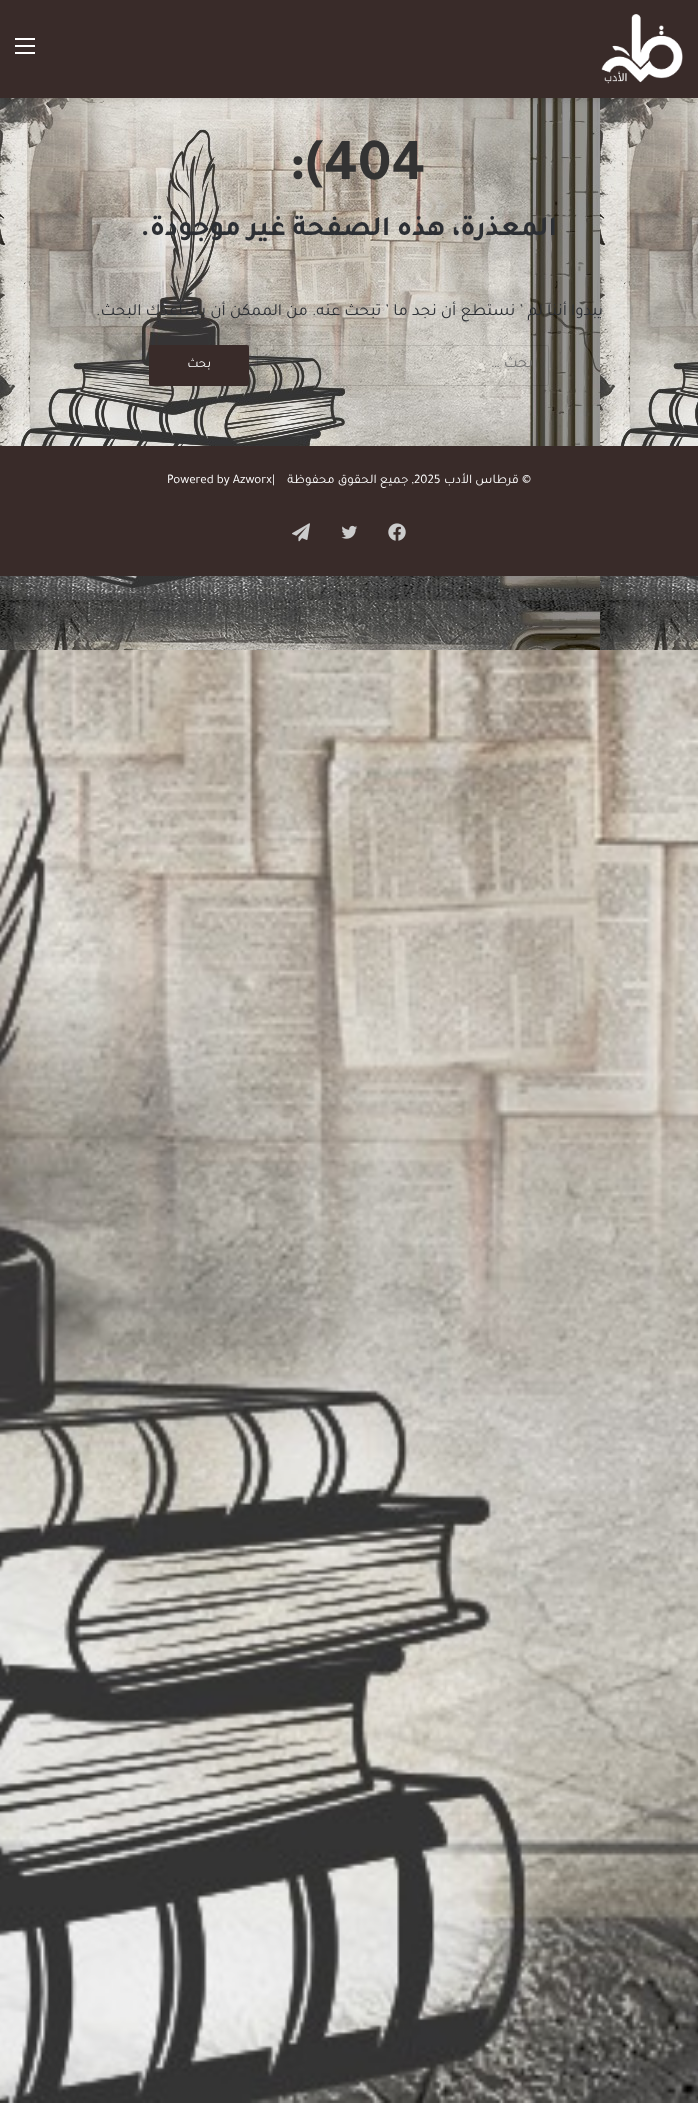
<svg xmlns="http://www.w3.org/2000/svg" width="698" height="2103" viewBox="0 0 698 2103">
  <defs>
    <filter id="blur1" x="-50%" y="-200%" width="200%" height="500%"><feGaussianBlur stdDeviation="3.5"/></filter>
  </defs>
  <rect width="100%" height="100%" fill="#ffffff"/>
  <image x="0" y="650" width="698" height="1453" href="img1.png"/>
  <image x="0" y="98" width="698" height="552" href="img2.png"/>
  <rect x="0" y="3" width="698" height="98" fill="#000000" fill-opacity="0.1" filter="url(#blur1)"/>
  <rect x="0" y="0" width="698" height="98" fill="#392b29"/>
  <image x="601" y="14" width="82" height="70" href="img3.png"/>
  <rect x="15" y="45" width="20" height="2" fill="#ffffff"/>
  <rect x="15" y="38" width="20" height="2" fill="#ffffff"/>
  <rect x="15" y="52" width="20" height="2" fill="#ffffff"/>
  <text x="288" y="179" font-family="Tajawal" font-size="60" font-weight="bold" fill="#333333">:(404</text>
  <text x="557" y="235" font-family="Tajawal" font-size="28" font-weight="bold" direction="rtl" fill="#2c2f34">المعذرة، هذه الصفحة غير موجودة.</text>
  <text x="603" y="315" font-family="Tajawal" font-size="17" direction="rtl" fill="#2c2f34">يبدوا أننا لم ’ نستطع أن نجد ما ’ تبحث عنه. من الممكن أن يساعدك البحث.</text>
  <rect x="257.5" y="345.5" width="291" height="40" rx="1.5" fill="none" stroke="#000000" stroke-opacity="0.1"/>
  <text x="533" y="367" font-family="Tajawal" font-size="16" direction="rtl" fill="#757575">بحث …</text>
  <rect x="149" y="345" width="100" height="41" rx="2" fill="#392b29"/>
  <text x="211" y="367" font-family="Tajawal" font-size="13" direction="rtl" fill="#ffffff">بحث</text>
  <rect x="0" y="446" width="698" height="130" fill="#392b29"/>
  <text x="531" y="483" font-family="Tajawal" font-size="13" direction="rtl" fill="#ffffff">© قرطاس الأدب</text>
  <text x="414" y="483" font-family="Tajawal" font-size="13" fill="#ffffff">2025</text>
  <text x="414" y="483" font-family="Tajawal" font-size="13" direction="rtl" fill="#ffffff">, جميع الحقوق محفوظة</text>
  <text x="272" y="483" font-family="Tajawal" font-size="13" fill="#ffffff">|</text>
  <text x="167" y="483" font-family="Tajawal" font-size="13" fill="#ffffff">Powered by Azworx</text>
  <image x="388" y="523" width="18" height="18" href="img4.png"/>
  <image x="341" y="525" width="17" height="14" href="img5.png"/>
  <image x="292" y="523" width="18" height="19" href="img6.png"/>
</svg>
